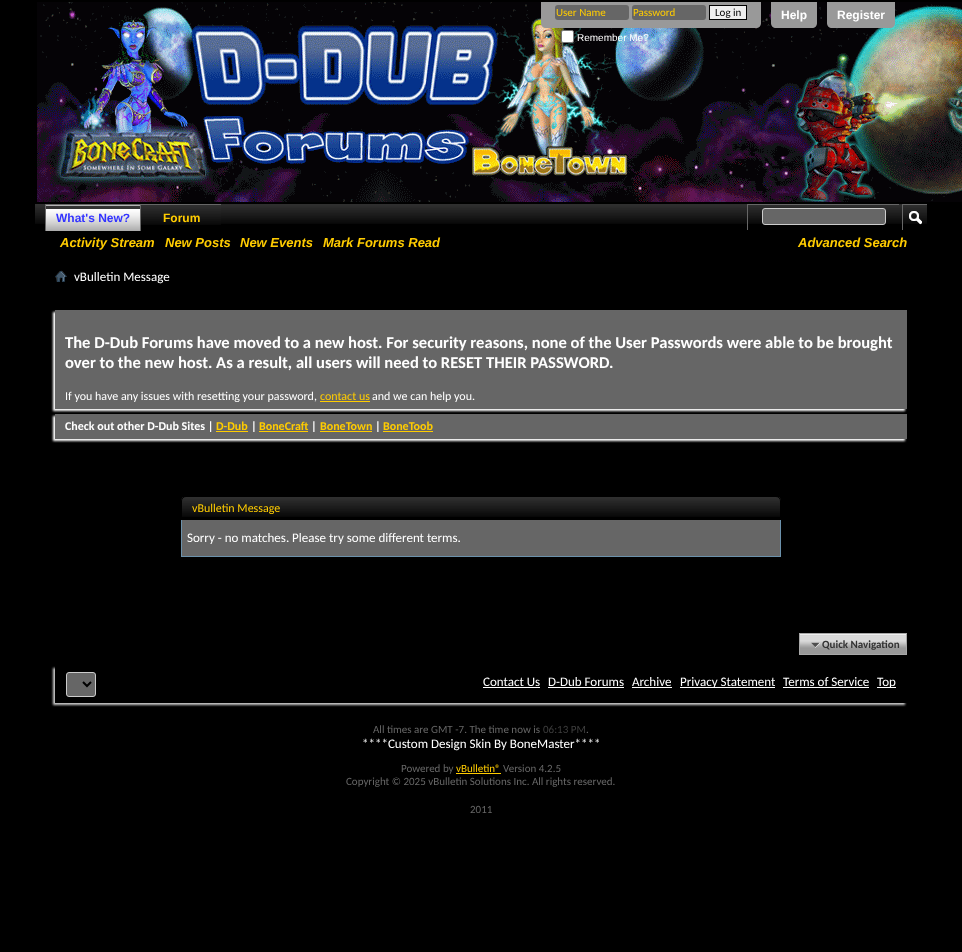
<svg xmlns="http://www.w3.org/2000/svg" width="962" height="952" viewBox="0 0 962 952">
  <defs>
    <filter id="blur1" x="-50%" y="-200%" width="200%" height="500%"><feGaussianBlur stdDeviation="1"/></filter>
    <clipPath id="clip1"><path d="M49 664H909V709H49ZM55 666H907V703H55Z" clip-rule="evenodd"/></clipPath>
  </defs>
  <rect width="100%" height="100%" fill="#000000"/>
  <image x="37" y="2" width="925" height="200" href="img1.png"/>
  <path d="M541 2H761V23C761 26 759 28 756 28H546C543 28 541 26 541 23Z" fill="#999999"/>
  <rect x="555" y="5" width="74" height="15" rx="3" fill="#666666"/>
  <text x="556" y="16" font-family="Carlito" font-size="11" fill="#ffcc00">User Name</text>
  <rect x="632" y="5" width="74" height="15" rx="3" fill="#666666"/>
  <text x="633" y="16" font-family="Carlito" font-size="11" fill="#ffcc00">Password</text>
  <rect x="709.5" y="5.5" width="37" height="14" fill="#efefef" stroke="#000000"/>
  <text x="715" y="16" font-family="Carlito" font-size="11" fill="#000000">Log in</text>
  <rect x="561.5" y="30.5" width="12" height="12" rx="1.5" fill="#ffffff" stroke="#767676"/>
  <text x="577" y="41" font-family="Liberation Sans" font-size="10" fill="#ffffff">Remember Me?</text>
  <path d="M771 2H817V23C817 26 815 28 812 28H776C773 28 771 26 771 23Z" fill="#999999"/>
  <text x="781" y="19" font-family="Liberation Sans" font-size="12" font-weight="bold" fill="#ffffff">Help</text>
  <path d="M827 2H895V23C895 26 893 28 890 28H832C829 28 827 26 827 23Z" fill="#999999"/>
  <text x="837" y="19" font-family="Liberation Sans" font-size="12" font-weight="bold" fill="#ffffff">Register</text>
  <image x="35" y="204" width="892" height="20" href="img2.png"/>
  <rect x="46" y="205" width="94" height="26" fill="#333333"/>
  <image x="46" y="205" width="94" height="26" href="img3.png"/>
  <rect x="45" y="204" width="176" height="1" fill="#666666"/>
  <rect x="45" y="204" width="1" height="27" fill="#666666"/>
  <text x="56" y="222" font-family="Liberation Sans" font-size="12" font-weight="bold" fill="#3333ff">What's New?</text>
  <rect x="141" y="205" width="80" height="19" fill="#000000"/>
  <image x="141" y="205" width="80" height="20" href="img4.png"/>
  <rect x="140" y="204" width="1" height="27" fill="#666666"/>
  <text x="163" y="222" font-family="Liberation Sans" font-size="12" font-weight="bold" fill="#ffcc00">Forum</text>
  <text x="60" y="247" font-family="Liberation Sans" font-size="13" font-weight="bold" font-style="italic" fill="#ffcc00">Activity Stream</text>
  <text x="165" y="247" font-family="Liberation Sans" font-size="13" font-weight="bold" font-style="italic" fill="#ffcc00">New Posts</text>
  <text x="240" y="247" font-family="Liberation Sans" font-size="13" font-weight="bold" font-style="italic" fill="#ffcc00">New Events</text>
  <text x="323" y="247" font-family="Liberation Sans" font-size="13" font-weight="bold" font-style="italic" fill="#ffcc00">Mark Forums Read</text>
  <rect x="747" y="204" width="152" height="1" fill="#666666"/>
  <rect x="747" y="204" width="1" height="26" fill="#666666"/>
  <rect x="762.5" y="208.5" width="123" height="16" rx="2.5" fill="#666666" stroke="#cccccc"/>
  <rect x="902" y="204" width="25" height="1" fill="#666666"/>
  <rect x="902" y="204" width="1" height="26" fill="#666666"/>
  <image x="909" y="211" width="13" height="14" href="img5.png"/>
  <text x="798" y="247" font-family="Liberation Sans" font-size="13" font-weight="bold" font-style="italic" fill="#ffcc00">Advanced Search</text>
  <image x="55" y="270" width="12" height="12" href="img6.png"/>
  <text x="74" y="281" font-family="Carlito" font-size="13" fill="#ffffff">vBulletin Message</text>
  <rect x="53" y="312" width="852" height="99" fill="#ffffff" filter="url(#blur1)"/>
  <rect x="55" y="310" width="852" height="99" fill="#666666"/>
  <text x="65" y="348" font-family="Carlito" font-size="16.6" font-weight="bold" fill="#ffffff">The D-Dub Forums have moved to a new host. For security reasons, none of the User Passwords were able to be brought</text>
  <text x="65" y="368" font-family="Carlito" font-size="16.6" font-weight="bold" fill="#ffffff">over to the new host. As a result, all users will need to RESET THEIR PASSWORD.</text>
  <text x="65" y="400" font-family="Carlito" font-size="12" fill="#ffffff">If you have any issues with resetting your password,</text>
  <text x="320" y="400" font-family="Carlito" font-size="12" fill="#ffcc00">contact us</text>
  <rect x="320" y="401" width="50" height="1" fill="#ffcc00"/>
  <text x="372" y="400" font-family="Carlito" font-size="12" fill="#ffffff">and we can help you.</text>
  <rect x="53" y="416" width="852" height="25" fill="#ffffff" filter="url(#blur1)"/>
  <rect x="55" y="414" width="852" height="25" fill="#666666"/>
  <text x="65" y="430" font-family="Carlito" font-size="12" font-weight="bold" fill="#ffffff">Check out other D-Dub Sites |</text>
  <text x="216" y="430" font-family="Carlito" font-size="12" font-weight="bold" fill="#ffcc00">D-Dub</text>
  <rect x="216" y="431" width="32" height="1" fill="#ffcc00"/>
  <text x="251" y="430" font-family="Carlito" font-size="12" font-weight="bold" fill="#ffffff">|</text>
  <text x="259" y="430" font-family="Carlito" font-size="12" font-weight="bold" fill="#ffcc00">BoneCraft</text>
  <rect x="259" y="431" width="49" height="1" fill="#ffcc00"/>
  <text x="311" y="430" font-family="Carlito" font-size="12" font-weight="bold" fill="#ffffff">|</text>
  <text x="320" y="430" font-family="Carlito" font-size="12" font-weight="bold" fill="#ffcc00">BoneTown</text>
  <rect x="320" y="431" width="52" height="1" fill="#ffcc00"/>
  <text x="375" y="430" font-family="Carlito" font-size="12" font-weight="bold" fill="#ffffff">|</text>
  <text x="383" y="430" font-family="Carlito" font-size="12" font-weight="bold" fill="#ffcc00">BoneToob</text>
  <rect x="383" y="431" width="50" height="1" fill="#ffcc00"/>
  <image x="181" y="497" width="600" height="20" href="img7.png"/>
  <path d="M186 496.5H776C778.5 496.5 780.5 498.5 780.5 501V519.5H181.5V501C181.5 498.5 183.5 496.5 186 496.5Z" fill="none" stroke="#000000"/>
  <text x="192" y="512" font-family="Carlito" font-size="12" fill="#ffcc00">vBulletin Message</text>
  <rect x="780" y="520" width="1" height="37" fill="#6b91ab"/>
  <rect x="181" y="556" width="600" height="1" fill="#6b91ab"/>
  <rect x="181" y="520" width="1" height="37" fill="#6b91ab"/>
  <rect x="182" y="520" width="598" height="36" fill="#666666"/>
  <text x="187" y="542" font-family="Carlito" font-size="13" fill="#ffffff">Sorry - no matches. Please try some different terms.</text>
  <rect x="800" y="634" width="106" height="20" fill="#999999"/>
  <image x="800" y="634" width="106" height="14" href="img8.png"/>
  <rect x="799.5" y="633.5" width="107" height="21" fill="none" stroke="#a8a8a8"/>
  <image x="811" y="642" width="9" height="6" href="img9.png"/>
  <text x="822" y="648" font-family="Carlito" font-size="11" font-weight="bold" fill="#333333">Quick Navigation</text>
  <g clip-path="url(#clip1)">
    <rect x="53" y="668" width="852" height="37" fill="#c8c8c8" filter="url(#blur1)"/>
  </g>
  <rect x="66.5" y="672.5" width="29" height="24" rx="2.5" fill="#666666" stroke="#cccccc"/>
  <path d="M83 682L87 686L91 682" fill="none" stroke="#000000" stroke-width="2"/>
  <text x="483" y="686" font-family="Carlito" font-size="13" fill="#ffffff">Contact Us</text>
  <rect x="483" y="687" width="57" height="1" fill="#ffffff"/>
  <text x="548" y="686" font-family="Carlito" font-size="13" fill="#ffffff">D-Dub Forums</text>
  <rect x="548" y="687" width="76" height="1" fill="#ffffff"/>
  <text x="632" y="686" font-family="Carlito" font-size="13" fill="#ffffff">Archive</text>
  <rect x="632" y="687" width="40" height="1" fill="#ffffff"/>
  <rect x="680" y="687" width="95" height="1" fill="#ffffff"/>
  <text x="680" y="686" font-family="Carlito" font-size="13" fill="#ffffff">Privacy Statement</text>
  <text x="783" y="686" font-family="Carlito" font-size="13" fill="#ffffff">Terms of Service</text>
  <rect x="783" y="687" width="86" height="1" fill="#ffffff"/>
  <rect x="877" y="687" width="19" height="1" fill="#ffffff"/>
  <text x="877" y="686" font-family="Carlito" font-size="13" fill="#ffffff">Top</text>
  <text x="373" y="733" font-family="Carlito" font-size="11" fill="#666666">All times are GMT -7. The time now is</text>
  <text x="543" y="733" font-family="Carlito" font-size="11" fill="#3e3e3e">06:13 PM</text>
  <text x="586" y="733" font-family="Carlito" font-size="11" fill="#666666">.</text>
  <text x="362" y="748" font-family="Carlito" font-size="13" fill="#ffffff">****Custom Design Skin By BoneMaster****</text>
  <text x="401" y="772" font-family="Carlito" font-size="11" fill="#666666">Powered by</text>
  <text x="456" y="772" font-family="Carlito" font-size="11" fill="#ffcc00">vBulletin®</text>
  <rect x="456" y="773" width="45" height="1" fill="#ffcc00"/>
  <text x="503" y="772" font-family="Carlito" font-size="11" fill="#666666">Version 4.2.5</text>
  <text x="346" y="785" font-family="Carlito" font-size="11" fill="#666666">Copyright © 2025 vBulletin Solutions Inc. All rights reserved.</text>
  <text x="470" y="813" font-family="Carlito" font-size="11" fill="#666666">2011</text>
</svg>
